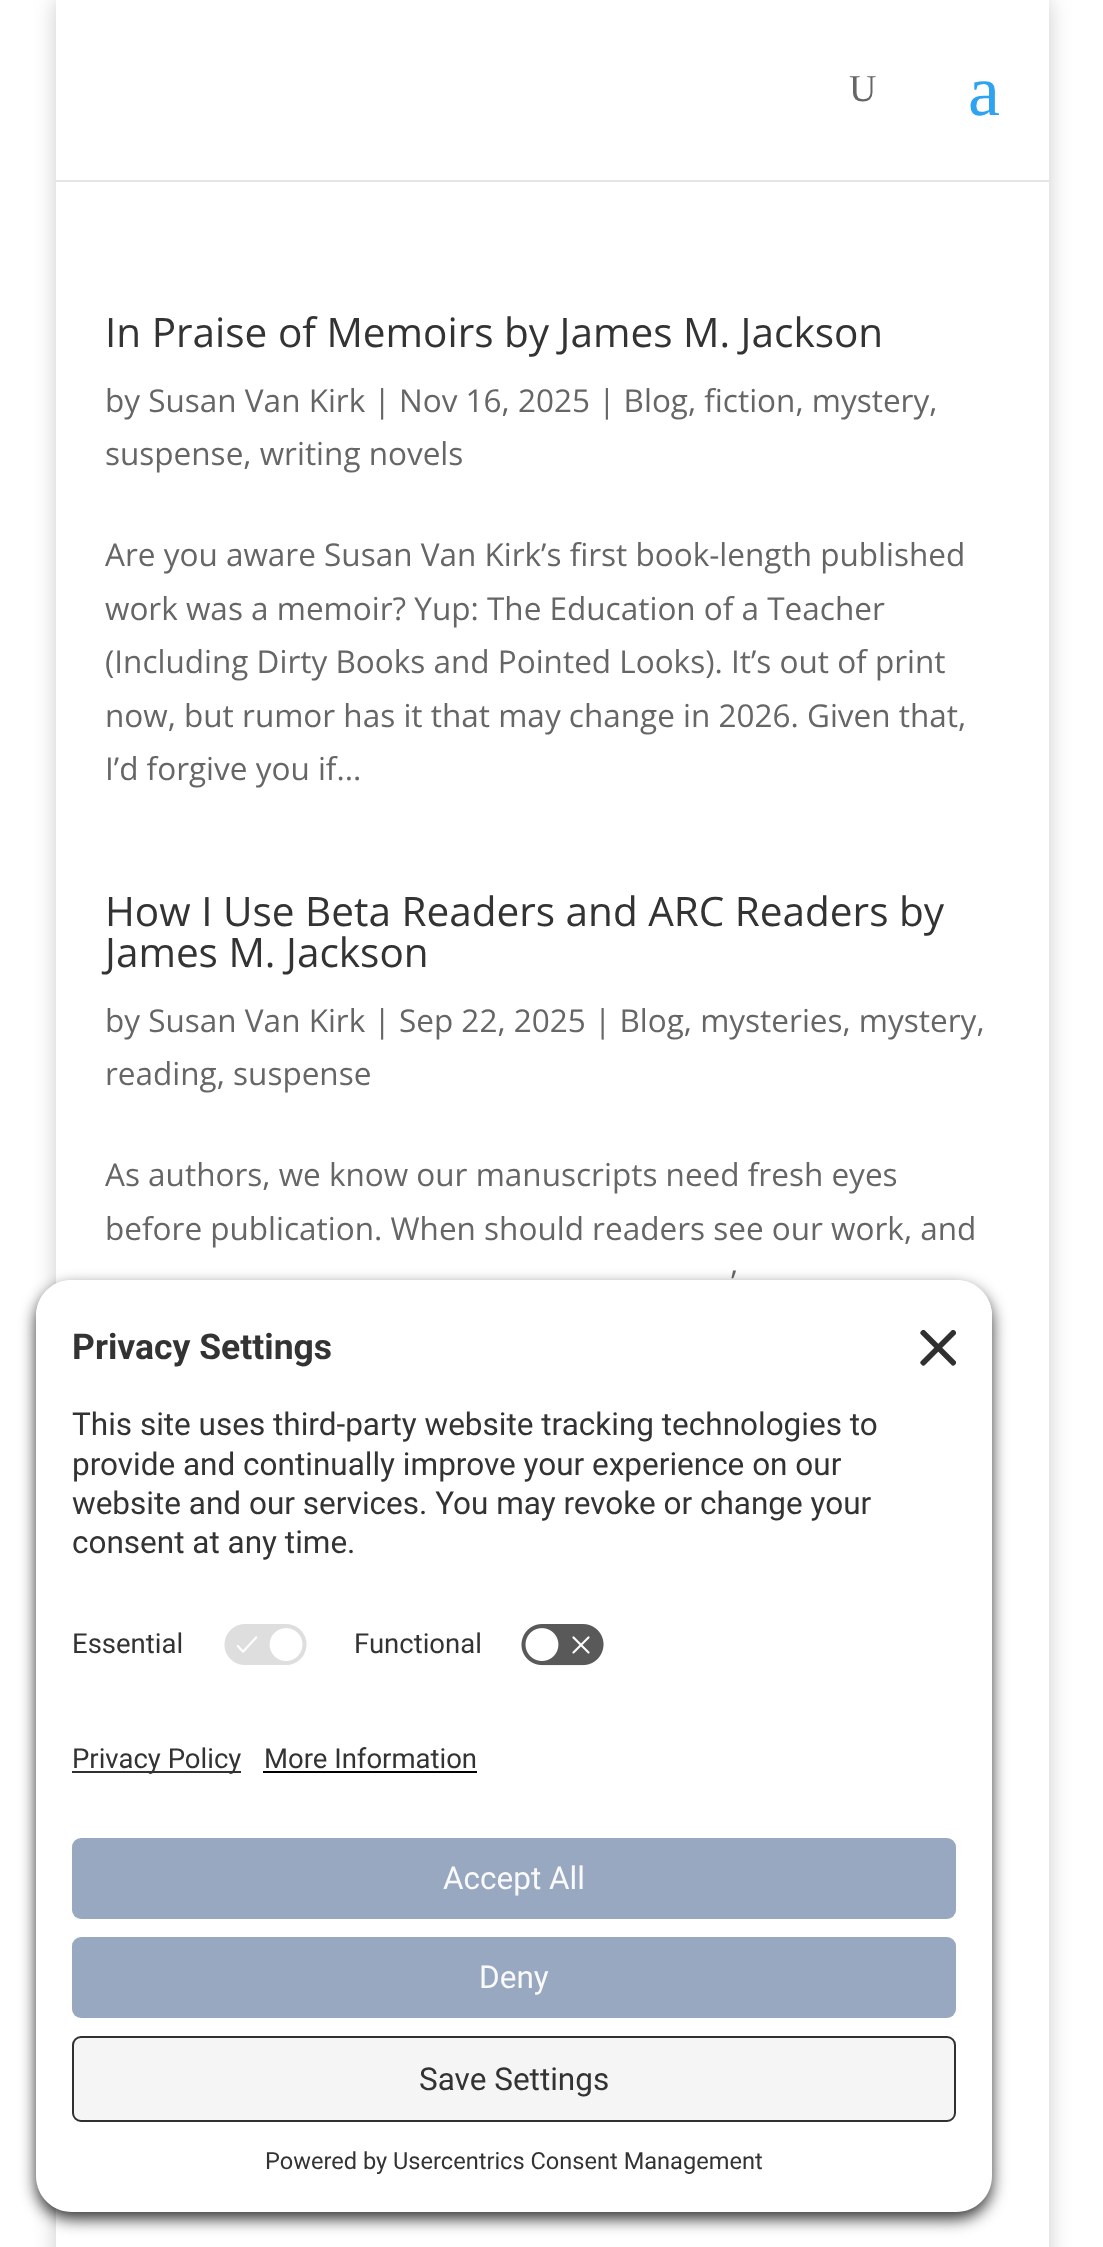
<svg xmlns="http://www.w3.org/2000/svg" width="1103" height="2247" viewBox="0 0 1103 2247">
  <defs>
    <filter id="blur1" x="-50%" y="-200%" width="200%" height="500%"><feGaussianBlur stdDeviation="11"/></filter>
    <filter id="blur2" x="-50%" y="-200%" width="200%" height="500%"><feGaussianBlur stdDeviation="8"/></filter>
  </defs>
  <rect width="100%" height="100%" fill="#ffffff"/>
  <rect x="56" y="0" width="993" height="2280" fill="#000000" fill-opacity="0.2" filter="url(#blur1)"/>
  <rect x="56" y="180" width="993" height="2067" fill="#ffffff"/>
  <path d="M56 2V182H1049V2H1048V180H56Z" fill="#000000" fill-opacity="0.1"/>
  <rect x="56" y="0" width="993" height="180" fill="#ffffff"/>
  <text x="849" y="101" font-family="Liberation Serif" font-size="38" fill="#666666">U</text>
  <text x="968" y="115" font-family="Liberation Serif" font-size="72" fill="#2ea3f2">a</text>
  <text x="105" y="347" font-family="Open Sans" font-size="40.5" fill="#333333">In Praise of Memoirs by James M. Jackson</text>
  <text x="105" y="412" font-family="Open Sans" font-size="31.5" fill="#666666">by Susan Van Kirk | Nov 16, 2025 | Blog, fiction, mystery,</text>
  <text x="105" y="465" font-family="Open Sans" font-size="31.5" fill="#666666">suspense, writing novels</text>
  <text x="105" y="566" font-family="Open Sans" font-size="31.5" fill="#666666">Are you aware Susan Van Kirk’s first book-length published</text>
  <text x="105" y="620" font-family="Open Sans" font-size="31.5" fill="#666666">work was a memoir? Yup: The Education of a Teacher</text>
  <text x="105" y="673" font-family="Open Sans" font-size="31.5" fill="#666666">(Including Dirty Books and Pointed Looks). It’s out of print</text>
  <text x="105" y="727" font-family="Open Sans" font-size="31.5" fill="#666666">now, but rumor has it that may change in 2026. Given that,</text>
  <text x="105" y="780" font-family="Open Sans" font-size="31.5" fill="#666666">I’d forgive you if...</text>
  <text x="105" y="926" font-family="Open Sans" font-size="40.5" fill="#333333">How I Use Beta Readers and ARC Readers by</text>
  <text x="105" y="967" font-family="Open Sans" font-size="40.5" fill="#333333">James M. Jackson</text>
  <text x="105" y="1032" font-family="Open Sans" font-size="31.5" fill="#666666">by Susan Van Kirk | Sep 22, 2025 | Blog, mysteries, mystery,</text>
  <text x="105" y="1085" font-family="Open Sans" font-size="31.5" fill="#666666">reading, suspense</text>
  <text x="105" y="1186" font-family="Open Sans" font-size="31.5" fill="#666666">As authors, we know our manuscripts need fresh eyes</text>
  <text x="105" y="1240" font-family="Open Sans" font-size="31.5" fill="#666666">before publication. When should readers see our work, and</text>
  <text x="731" y="1293" font-family="Open Sans" font-size="31.5" fill="#666666">’</text>
  <rect x="36" y="1287" width="956" height="932" rx="36" fill="#000000" fill-opacity="0.8" filter="url(#blur2)"/>
  <path d="M72 1280H956C976 1280 992 1296 992 1316V1708H36V1316C36 1296 52 1280 72 1280Z" fill="#ffffff"/>
  <path d="M72 1280H956C976 1280 992 1296 992 1316V1609H36V1316C36 1296 52 1280 72 1280Z" fill="#ffffff"/>
  <text x="72" y="1359" font-family="Roboto" font-size="35.5" font-weight="bold" fill="#333333">Privacy Settings</text>
  <image x="920" y="1330" width="36" height="36" href="img1.png"/>
  <text x="72" y="1435" font-family="Roboto" font-size="31.5" fill="#333333">This site uses third-party website tracking technologies to</text>
  <text x="72" y="1475" font-family="Roboto" font-size="31.5" fill="#333333">provide and continually improve your experience on our</text>
  <text x="72" y="1514" font-family="Roboto" font-size="31.5" fill="#333333">website and our services. You may revoke or change your</text>
  <text x="72" y="1553" font-family="Roboto" font-size="31.5" fill="#333333">consent at any time.</text>
  <text x="72" y="1653" font-family="Roboto" font-size="27.5" fill="#333333">Essential</text>
  <image x="224" y="1624" width="83" height="41" href="img2.png"/>
  <text x="354" y="1653" font-family="Roboto" font-size="27.5" fill="#333333">Functional</text>
  <image x="521" y="1624" width="83" height="42" href="img3.png"/>
  <path d="M36 1708H992V2176C992 2196 976 2212 956 2212H72C52 2212 36 2196 36 2176Z" fill="#ffffff"/>
  <rect x="72" y="1771" width="169" height="2" fill="#303030"/>
  <text x="72" y="1768" font-family="Roboto" font-size="27.5" fill="#333333">Privacy Policy</text>
  <text x="264" y="1768" font-family="Roboto" font-size="27.5" fill="#333333">More Information</text>
  <rect x="263" y="1771" width="214" height="2" fill="#000000"/>
  <rect x="72" y="1838" width="884" height="81" rx="9" fill="#97a8c0"/>
  <text x="443" y="1889" font-family="Roboto" font-size="31.5" fill="#fafafa">Accept All</text>
  <rect x="72" y="1937" width="884" height="81" rx="9" fill="#97a8c0"/>
  <text x="479" y="1988" font-family="Roboto" font-size="31.5" fill="#fafafa">Deny</text>
  <rect x="73" y="2037" width="882" height="84" rx="8" fill="#f5f5f5" stroke="#303030" stroke-width="2"/>
  <text x="419" y="2090" font-family="Roboto" font-size="31.5" fill="#333333">Save Settings</text>
  <text x="265" y="2169" font-family="Roboto" font-size="23.6" fill="#333333">Powered by Usercentrics Consent Management</text>
</svg>
